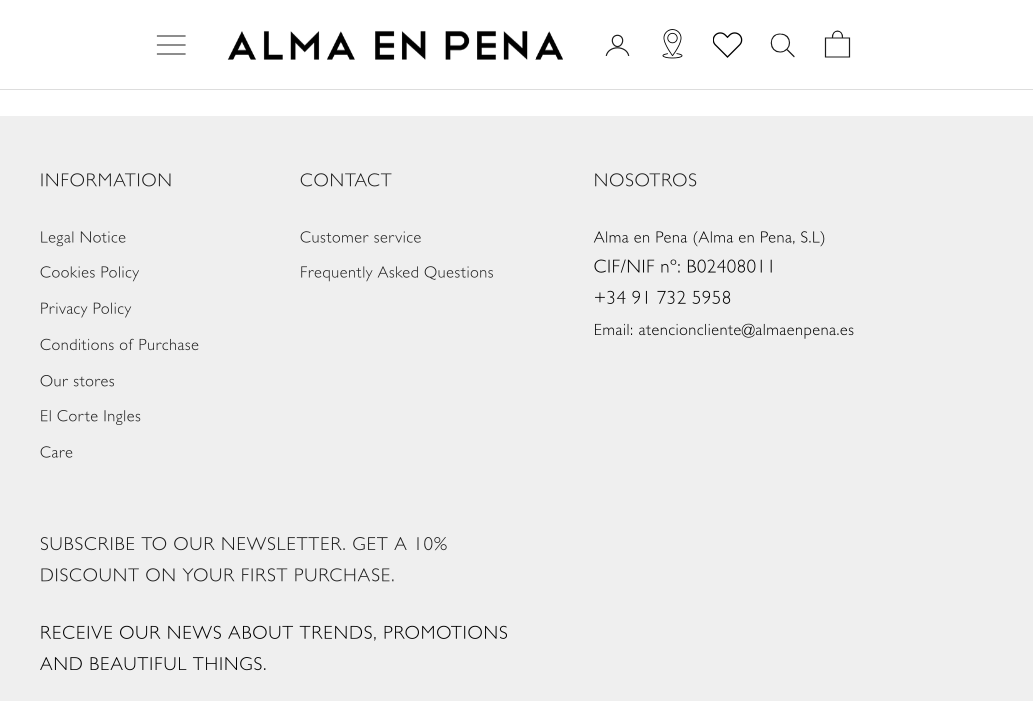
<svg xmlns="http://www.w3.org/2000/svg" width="1033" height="701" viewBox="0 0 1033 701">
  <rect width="100%" height="100%" fill="#efefef"/>
  <rect x="0" y="0" width="1033" height="89" fill="#ffffff"/>
  <rect x="0" y="89" width="1033" height="1" fill="#dddddd"/>
  <path d="M157.5 54H185M157.5 45H185M157.5 36H185" fill="none" stroke="#1c1c1c" stroke-width="1.2" stroke-linecap="square"/>
  <image x="227" y="30" width="336" height="30" href="img1.png"/>
  <image x="605" y="34" width="25" height="22" href="img2.png"/>
  <image x="662" y="29" width="21" height="30" href="img3.png"/>
  <image x="713" y="32" width="30" height="26" href="img4.png"/>
  <path d="M780.5 34C768 33.5 768.5 52.5 780.5 52C792.5 51.5 792.5 34 780.5 34Z" fill="none" stroke="#1c1c1c" stroke-width="1.2"/>
  <path d="M787.5 50L794 56.5" fill="none" stroke="#1c1c1c" stroke-width="1.2" stroke-linecap="round"/>
  <path d="M849.5 57V38H825.5V57ZM832.5 37.5C832.5 29 842.5 29 842.5 37.5" fill="none" stroke="#1c1c1c" stroke-width="1.2"/>
  <rect x="0" y="90" width="1033" height="26" fill="#ffffff"/>
  <image x="41" y="173" width="130" height="14" href="img5.png"/>
  <image x="41" y="231" width="85" height="16" href="img6.png"/>
  <image x="40" y="266" width="99" height="16" href="img7.png"/>
  <image x="41" y="302" width="91" height="16" href="img8.png"/>
  <image x="40" y="338" width="159" height="13" href="img9.png"/>
  <image x="40" y="375" width="74" height="12" href="img10.png"/>
  <image x="41" y="410" width="100" height="15" href="img11.png"/>
  <image x="40" y="446" width="33" height="12" href="img12.png"/>
  <image x="300" y="173" width="92" height="14" href="img13.png"/>
  <image x="300" y="231" width="121" height="12" href="img14.png"/>
  <image x="301" y="266" width="192" height="16" href="img15.png"/>
  <image x="595" y="173" width="102" height="14" href="img16.png"/>
  <image x="593" y="231" width="232" height="16" href="img17.png"/>
  <image x="594" y="259" width="178" height="14" href="img18.png"/>
  <image x="595" y="290" width="136" height="14" href="img19.png"/>
  <image x="595" y="323" width="38" height="13" href="img20.png"/>
  <image x="639" y="323" width="215" height="16" href="img21.png"/>
  <image x="40" y="537" width="305" height="14" href="img22.png"/>
  <image x="353" y="537" width="94" height="14" href="img23.png"/>
  <image x="41" y="568" width="353" height="14" href="img24.png"/>
  <image x="41" y="625" width="466" height="16" href="img25.png"/>
  <image x="40" y="657" width="226" height="14" href="img26.png"/>
</svg>
